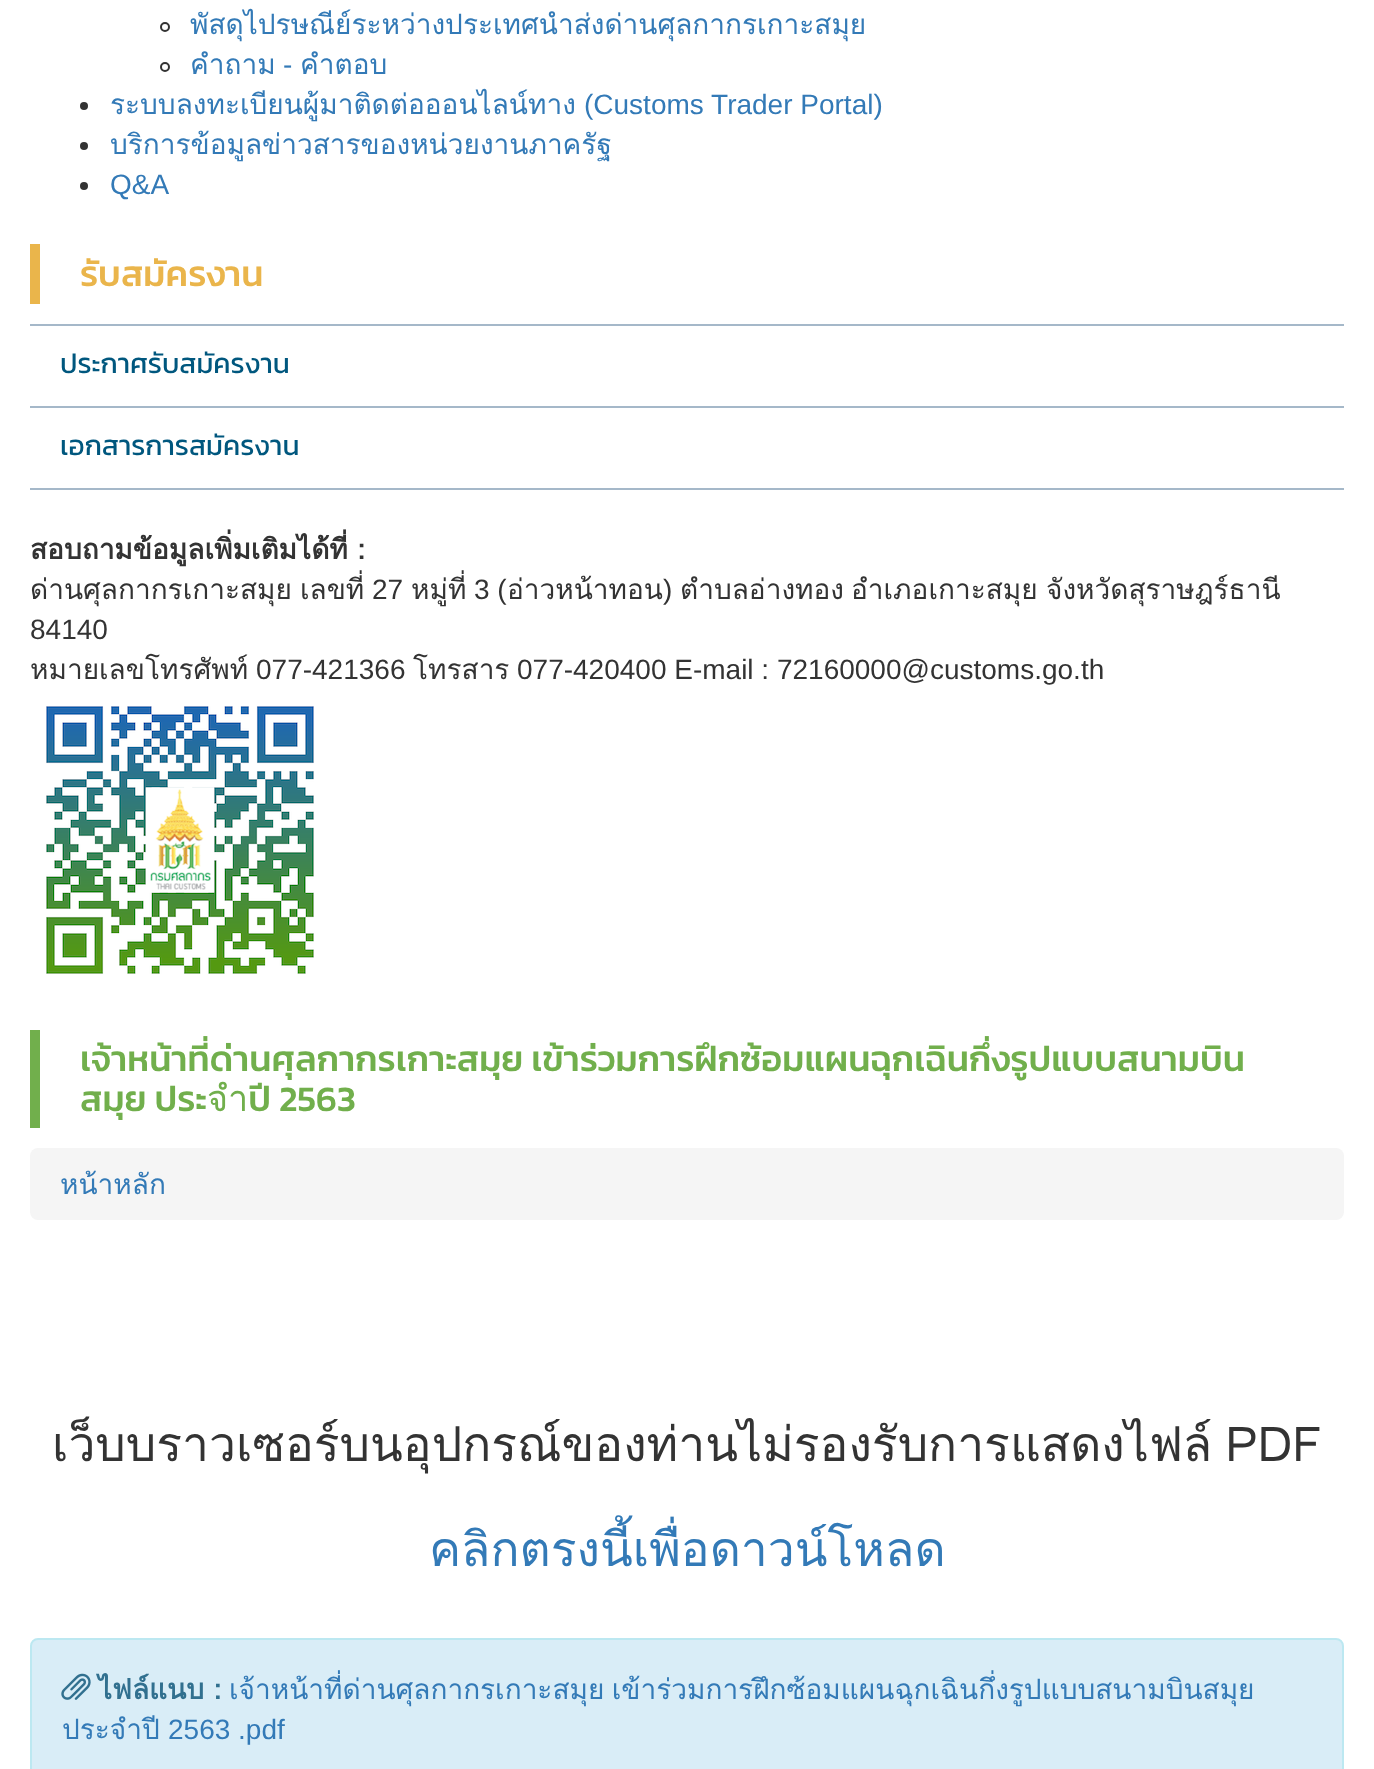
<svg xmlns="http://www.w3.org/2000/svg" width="1374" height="1769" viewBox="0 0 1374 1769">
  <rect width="100%" height="100%" fill="#ffffff"/>
  <circle cx="165" cy="27" r="4" fill="none" stroke="#333333" stroke-width="2"/>
  <text x="190" y="34" font-family="Loma" font-size="28" fill="#337ab7">พัสดุไปรษณีย์ระหว่างประเทศนำส่งด่านศุลกากรเกาะสมุย</text>
  <circle cx="165" cy="67" r="4" fill="none" stroke="#333333" stroke-width="2"/>
  <text x="190" y="74" font-family="Loma" font-size="28" fill="#337ab7">คำถาม</text>
  <text x="283" y="74" font-family="Liberation Sans" font-size="28" fill="#337ab7">-</text>
  <text x="300" y="74" font-family="Loma" font-size="28" fill="#337ab7">คำตอบ</text>
  <circle cx="84" cy="106" r="4" fill="#333333"/>
  <text x="110" y="114" font-family="Loma" font-size="28" fill="#337ab7">ระบบลงทะเบียนผู้มาติดต่อออนไลน์ทาง</text>
  <text x="584" y="114" font-family="Liberation Sans" font-size="28" fill="#337ab7">(Customs Trader Portal)</text>
  <circle cx="84" cy="146" r="4" fill="#333333"/>
  <text x="110" y="154" font-family="Loma" font-size="28" fill="#337ab7">บริการข้อมูลข่าวสารของหน่วยงานภาครัฐ</text>
  <circle cx="84" cy="186" r="4" fill="#333333"/>
  <text x="110" y="194" font-family="Liberation Sans" font-size="28" fill="#337ab7">Q&amp;A</text>
  <rect x="30" y="244" width="10" height="60" fill="#eab54b"/>
  <text x="80" y="286" font-family="Kanit" font-size="36" font-weight="500" fill="#eab54b">รับสมัครงาน</text>
  <rect x="30" y="406" width="1314" height="2" fill="#a5b8c9"/>
  <rect x="30" y="324" width="1314" height="2" fill="#a5b8c9"/>
  <text x="60" y="373" font-family="Kanit" font-size="28" fill="#00577e">ประกาศรับสมัครงาน</text>
  <rect x="30" y="488" width="1314" height="2" fill="#a5b8c9"/>
  <text x="60" y="455" font-family="Kanit" font-size="28" fill="#00577e">เอกสารการสมัครงาน</text>
  <text x="30" y="559" font-family="Loma" font-size="28" font-weight="bold" fill="#333333">สอบถามข้อมูลเพิ่มเติมได้ที่ :</text>
  <text x="30" y="599" font-family="Loma" font-size="28" fill="#333333">ด่านศุลกากรเกาะสมุย</text>
  <text x="300" y="599" font-family="Loma" font-size="28" fill="#333333">เลขที่</text>
  <text x="372" y="599" font-family="Liberation Sans" font-size="28" fill="#333333">27</text>
  <text x="411" y="599" font-family="Loma" font-size="28" fill="#333333">หมู่ที่</text>
  <text x="474" y="599" font-family="Liberation Sans" font-size="28" fill="#333333">3 (</text>
  <text x="507" y="599" font-family="Loma" font-size="28" fill="#333333">อ่าวหน้าทอน</text>
  <text x="663" y="599" font-family="Liberation Sans" font-size="28" fill="#333333">)</text>
  <text x="680" y="599" font-family="Loma" font-size="28" fill="#333333">ตำบลอ่างทอง</text>
  <text x="851" y="599" font-family="Loma" font-size="28" fill="#333333">อำเภอเกาะสมุย</text>
  <text x="1046" y="599" font-family="Loma" font-size="28" fill="#333333">จังหวัดสุราษฎร์ธานี</text>
  <text x="30" y="639" font-family="Liberation Sans" font-size="28" fill="#333333">84140</text>
  <text x="30" y="679" font-family="Loma" font-size="28" fill="#333333">หมายเลขโทรศัพท์</text>
  <text x="256" y="679" font-family="Liberation Sans" font-size="28" fill="#333333">077-421366</text>
  <text x="413" y="679" font-family="Loma" font-size="28" fill="#333333">โทรสาร</text>
  <text x="517" y="679" font-family="Liberation Sans" font-size="28" fill="#333333">077-420400 E-mail : 72160000@customs.go.th</text>
  <image x="46" y="706" width="268" height="268" href="img1.png"/>
  <rect x="30" y="1030" width="10" height="98" fill="#71af4c"/>
  <text x="80" y="1071" font-family="Kanit" font-size="36" font-weight="500" fill="#71af4c">เจ้าหน้าที่ด่านศุลกากรเกาะสมุย เข้าร่วมการฝึกซ้อมแผนฉุกเฉินกึ่งรูปแบบสนามบิน</text>
  <text x="80" y="1111" font-family="Kanit" font-size="36" font-weight="500" fill="#71af4c">สมุย ประจำปี 2563</text>
  <rect x="30" y="1148" width="1314" height="72" rx="8" fill="#f5f5f5"/>
  <text x="60" y="1194" font-family="Loma" font-size="28" fill="#337ab7">หน้าหลัก</text>
  <text x="52" y="1461" word-spacing="-3" font-family="Loma" font-size="48" fill="#333333">เว็บบราวเซอร์บนอุปกรณ์ของท่านไม่รองรับการแสดงไฟล์ PDF</text>
  <text x="429" y="1566" font-family="Loma" font-size="48" fill="#337ab7">คลิกตรงนี้เพื่อดาวน์โหลด</text>
  <rect x="31" y="1639" width="1312" height="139" rx="7" fill="#d9edf7" stroke="#bce8f1" stroke-width="2"/>
  <image x="61" y="1673" width="30" height="27" href="img2.png"/>
  <text x="98" y="1699" font-family="Loma" font-size="28" font-weight="bold" fill="#31708f">ไฟล์แนบ :</text>
  <text x="229" y="1699" word-spacing="-2" font-family="Loma" font-size="28" fill="#337ab7">เจ้าหน้าที่ด่านศุลกากรเกาะสมุย เข้าร่วมการฝึกซ้อมแผนฉุกเฉินกึ่งรูปแบบสนามบินสมุย</text>
  <text x="62" y="1739" font-family="Loma" font-size="28" fill="#337ab7">ประจำปี</text>
  <text x="168" y="1739" font-family="Liberation Sans" font-size="28" fill="#337ab7">2563 .pdf</text>
</svg>
